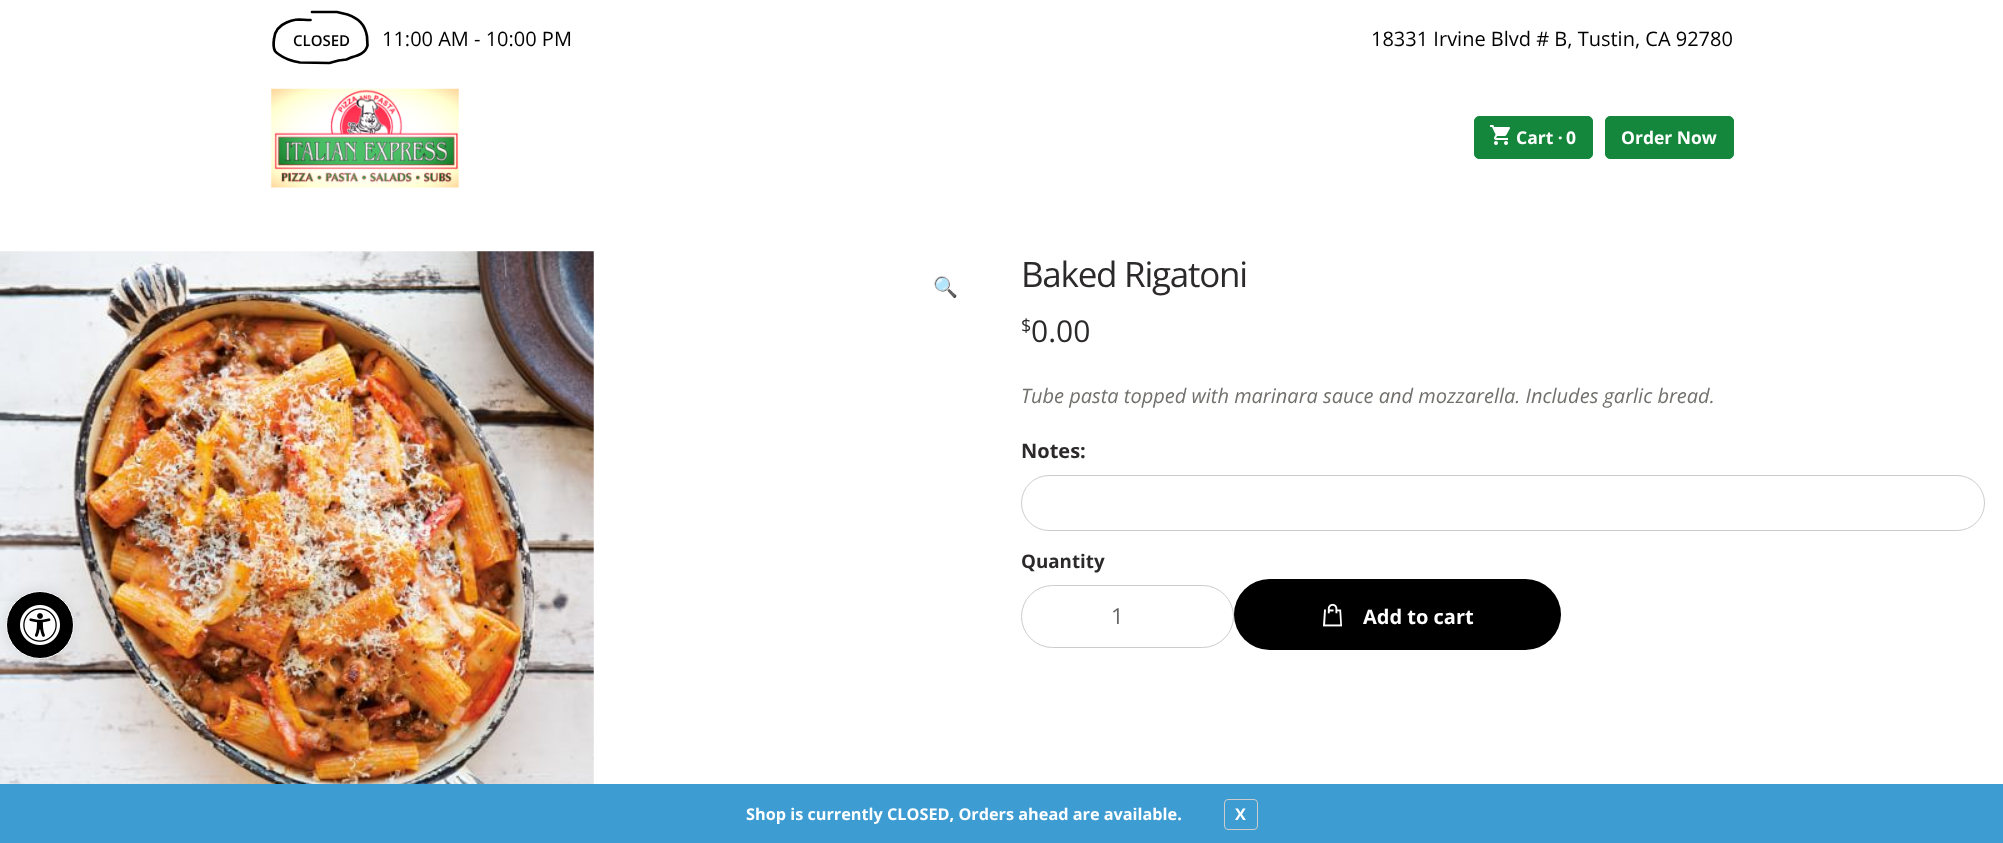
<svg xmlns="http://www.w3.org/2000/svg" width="2003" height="843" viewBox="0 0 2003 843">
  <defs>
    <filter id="blur1" x="-50%" y="-200%" width="200%" height="500%"><feGaussianBlur stdDeviation="6"/></filter>
  </defs>
  <rect width="100%" height="100%" fill="#ffffff"/>
  <image x="0" y="251" width="594" height="533" href="img4.png"/>
  <rect x="6" y="591" width="68" height="68" rx="34" fill="#000000" fill-opacity="0.1" filter="url(#blur1)"/>
  <circle cx="40" cy="625" r="33.5" fill="#000000" stroke="#ffffff"/>
  <image x="20" y="605" width="40" height="40" href="img1.png"/>
  <path d="M310.5 20C300.5 20 296 18 286.5 22.5C279.5 25.5 274.5 31.5 274 39C273.5 42.5 273 47.5 275 51C276 52.5 277.5 53.5 279 54.5C284.5 58.5 293 61.5 300 62.5L329.5 63L338.5 60.5L346.5 59.5L351 57.5C358 55.5 365.5 53.5 367.5 45.5L367 36.5C365 24 358.5 18.5 347.5 14.5L337 12H312" fill="none" stroke="#000000" stroke-width="2.7" stroke-linecap="round"/>
  <text x="293" y="46" font-family="Open Sans" font-size="15" font-weight="600" fill="#000000">CLOSED</text>
  <text x="382" y="46" font-family="Open Sans" font-size="20" fill="#000000">11:00 AM - 10:00 PM</text>
  <text x="1371" y="46" font-family="Open Sans" font-size="20" fill="#000000">18331 Irvine Blvd # B, Tustin, CA 92780</text>
  <image x="271" y="88" width="188" height="100" href="img2.png"/>
  <rect x="1474.5" y="116.5" width="118" height="42" rx="4.5" fill="#15873d" stroke="#15873d"/>
  <image x="1490" y="125" width="20" height="20" href="img3.png"/>
  <text x="1516" y="144" font-family="Open Sans" font-size="17.5" font-weight="bold" fill="#ffffff">Cart ·</text>
  <text x="1566" y="144" font-family="Open Sans" font-size="17.5" font-weight="bold" fill="#ffffff">0</text>
  <rect x="1605.5" y="116.5" width="128" height="42" rx="4.5" fill="#15873d" stroke="#15873d"/>
  <text x="1621" y="144" font-family="Open Sans" font-size="17.5" font-weight="bold" fill="#ffffff">Order Now</text>
  <text x="933" y="294" font-family="Noto Color Emoji" font-size="20" fill="#2b2929">🔍</text>
  <text x="1021" y="287" font-family="Open Sans" font-size="35" letter-spacing="-1.25" fill="#2b2929">Baked Rigatoni</text>
  <text x="1021" y="332" font-family="Open Sans" font-size="18" fill="#2b2929">$</text>
  <text x="1031" y="342" font-family="Open Sans" font-size="30" fill="#2b2929">0.00</text>
  <text x="1021" y="403" font-family="Open Sans" font-size="20" font-style="italic" fill="#71706c">Tube pasta topped with marinara sauce and mozzarella. Includes garlic bread.</text>
  <text x="1021" y="458" font-family="Open Sans" font-size="20" font-weight="bold" fill="#2b2929">Notes:</text>
  <rect x="1021.5" y="475.5" width="963" height="55" rx="27.5" fill="none" stroke="#cccccc"/>
  <text x="1021" y="568" font-family="Open Sans" font-size="18.75" font-weight="bold" fill="#2b2929">Quantity</text>
  <rect x="1021.5" y="585.5" width="212" height="62" rx="31" fill="none" stroke="#cccccc"/>
  <text x="1111" y="624" font-family="Open Sans" font-size="22" fill="#666666">1</text>
  <rect x="1234" y="579" width="327" height="71" rx="35.5" fill="#000000"/>
  <image x="1323" y="603" width="19" height="24" href="img5.png"/>
  <text x="1363" y="624" font-family="Open Sans" font-size="20" font-weight="bold" fill="#ffffff">Add to cart</text>
  <rect x="0" y="784" width="2003" height="59" fill="#3d9cd2"/>
  <text x="746" y="820" font-family="Open Sans" font-size="16.25" font-weight="bold" fill="#ffffff">Shop is currently CLOSED, Orders ahead are available.</text>
  <rect x="1224.5" y="799.5" width="33" height="30" rx="3.5" fill="none" stroke="#cccccc"/>
  <text x="1235" y="820" font-family="Open Sans" font-size="16.25" font-weight="bold" fill="#ffffff">X</text>
</svg>
